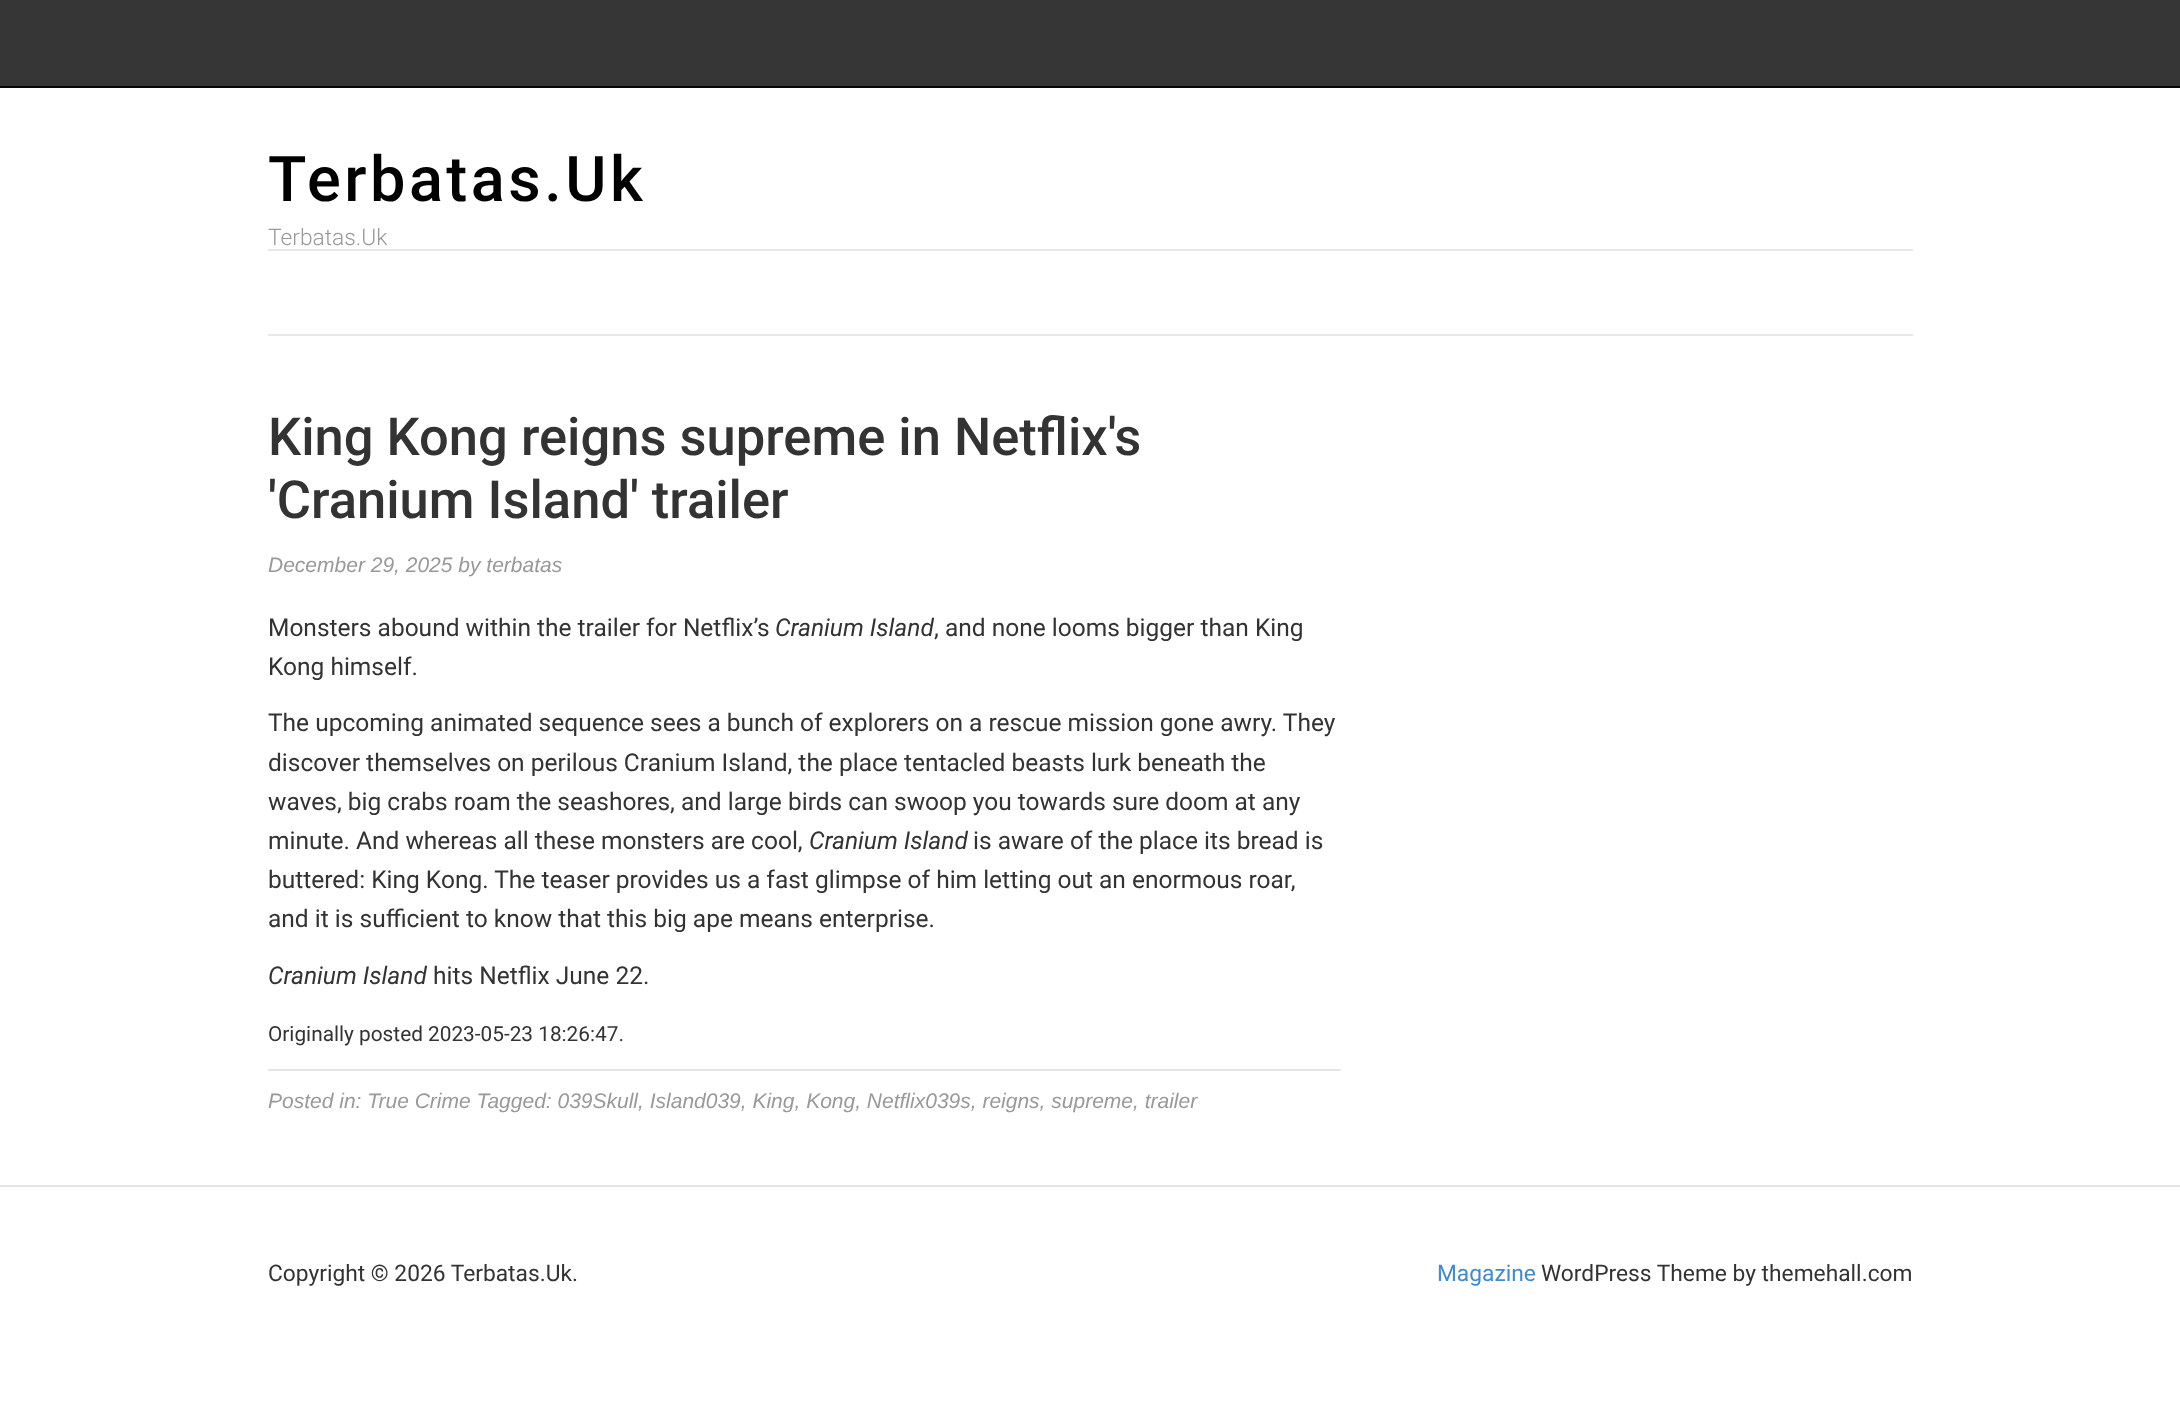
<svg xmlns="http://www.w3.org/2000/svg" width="2180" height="1406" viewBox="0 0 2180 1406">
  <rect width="100%" height="100%" fill="#ffffff"/>
  <rect x="0" y="0" width="2180" height="86" fill="#363636"/>
  <rect x="0" y="86" width="2180" height="2" fill="#080808"/>
  <text x="268" y="201" font-family="Roboto" font-size="63" font-weight="500" letter-spacing="3.5" fill="#000000">Terbatas.Uk</text>
  <text x="268" y="245" font-family="Roboto" font-size="22.75" font-weight="300" fill="#999999">Terbatas.Uk</text>
  <rect x="268" y="249" width="1645" height="2" fill="#e7e7e7"/>
  <rect x="268" y="334" width="1645" height="2" fill="#e7e7e7"/>
  <text x="268" y="455" font-family="Roboto" font-size="52.5" font-weight="500" fill="#333333">King Kong reigns supreme in Netflix's</text>
  <text x="268" y="518" font-family="Roboto" font-size="52.5" font-weight="500" fill="#333333">'Cranium Island' trailer</text>
  <text x="268" y="572" font-family="Liberation Sans" font-size="21" font-style="italic" fill="#999999">December 29, 2025 by terbatas</text>
  <text x="268" y="636" font-family="Roboto" font-size="24.5" fill="#333333">Monsters abound within the trailer for Netflix’s</text>
  <text x="775" y="636" font-family="Roboto" font-size="24.5" font-style="italic" fill="#333333">Cranium Island</text>
  <text x="934" y="636" font-family="Roboto" font-size="24.5" fill="#333333">, and none looms bigger than King</text>
  <text x="268" y="675" font-family="Roboto" font-size="24.5" fill="#333333">Kong himself.</text>
  <text x="268" y="731" font-family="Roboto" font-size="24.5" fill="#333333">The upcoming animated sequence sees a bunch of explorers on a rescue mission gone awry. They</text>
  <text x="268" y="771" font-family="Roboto" font-size="24.5" fill="#333333">discover themselves on perilous Cranium Island, the place tentacled beasts lurk beneath the</text>
  <text x="268" y="810" font-family="Roboto" font-size="24.5" fill="#333333">waves, big crabs roam the seashores, and large birds can swoop you towards sure doom at any</text>
  <text x="268" y="849" font-family="Roboto" font-size="24.5" fill="#333333">minute. And whereas all these monsters are cool,</text>
  <text x="809" y="849" font-family="Roboto" font-size="24.5" font-style="italic" fill="#333333">Cranium Island</text>
  <text x="973" y="849" font-family="Roboto" font-size="24.5" fill="#333333">is aware of the place its bread is</text>
  <text x="268" y="888" font-family="Roboto" font-size="24.5" fill="#333333">buttered: King Kong. The teaser provides us a fast glimpse of him letting out an enormous roar,</text>
  <text x="268" y="927" font-family="Roboto" font-size="24.5" fill="#333333">and it is sufficient to know that this big ape means enterprise.</text>
  <text x="268" y="984" font-family="Roboto" font-size="24.5" font-style="italic" fill="#333333">Cranium Island</text>
  <text x="433" y="984" font-family="Roboto" font-size="24.5" fill="#333333">hits Netflix June 22.</text>
  <text x="268" y="1041" font-family="Roboto" font-size="20.8" fill="#333333">Originally posted 2023-05-23 18:26:47.</text>
  <rect x="268" y="1069" width="1073" height="2" fill="#e5e5e5"/>
  <text x="268" y="1108" font-family="Liberation Sans" font-size="21" font-style="italic" fill="#999999">Posted in: True Crime Tagged: 039Skull, Island039, King, Kong, Netflix039s, reigns, supreme, trailer</text>
  <rect x="0" y="1185" width="2180" height="2" fill="#e5e5e5"/>
  <text x="268" y="1281" font-family="Roboto" font-size="22.75" fill="#333333">Copyright © 2026 Terbatas.Uk.</text>
  <text x="1437" y="1281" font-family="Roboto" font-size="22.75" fill="#428bca">Magazine</text>
  <text x="1541" y="1281" font-family="Roboto" font-size="22.75" fill="#333333">WordPress Theme by themehall.com</text>
</svg>
